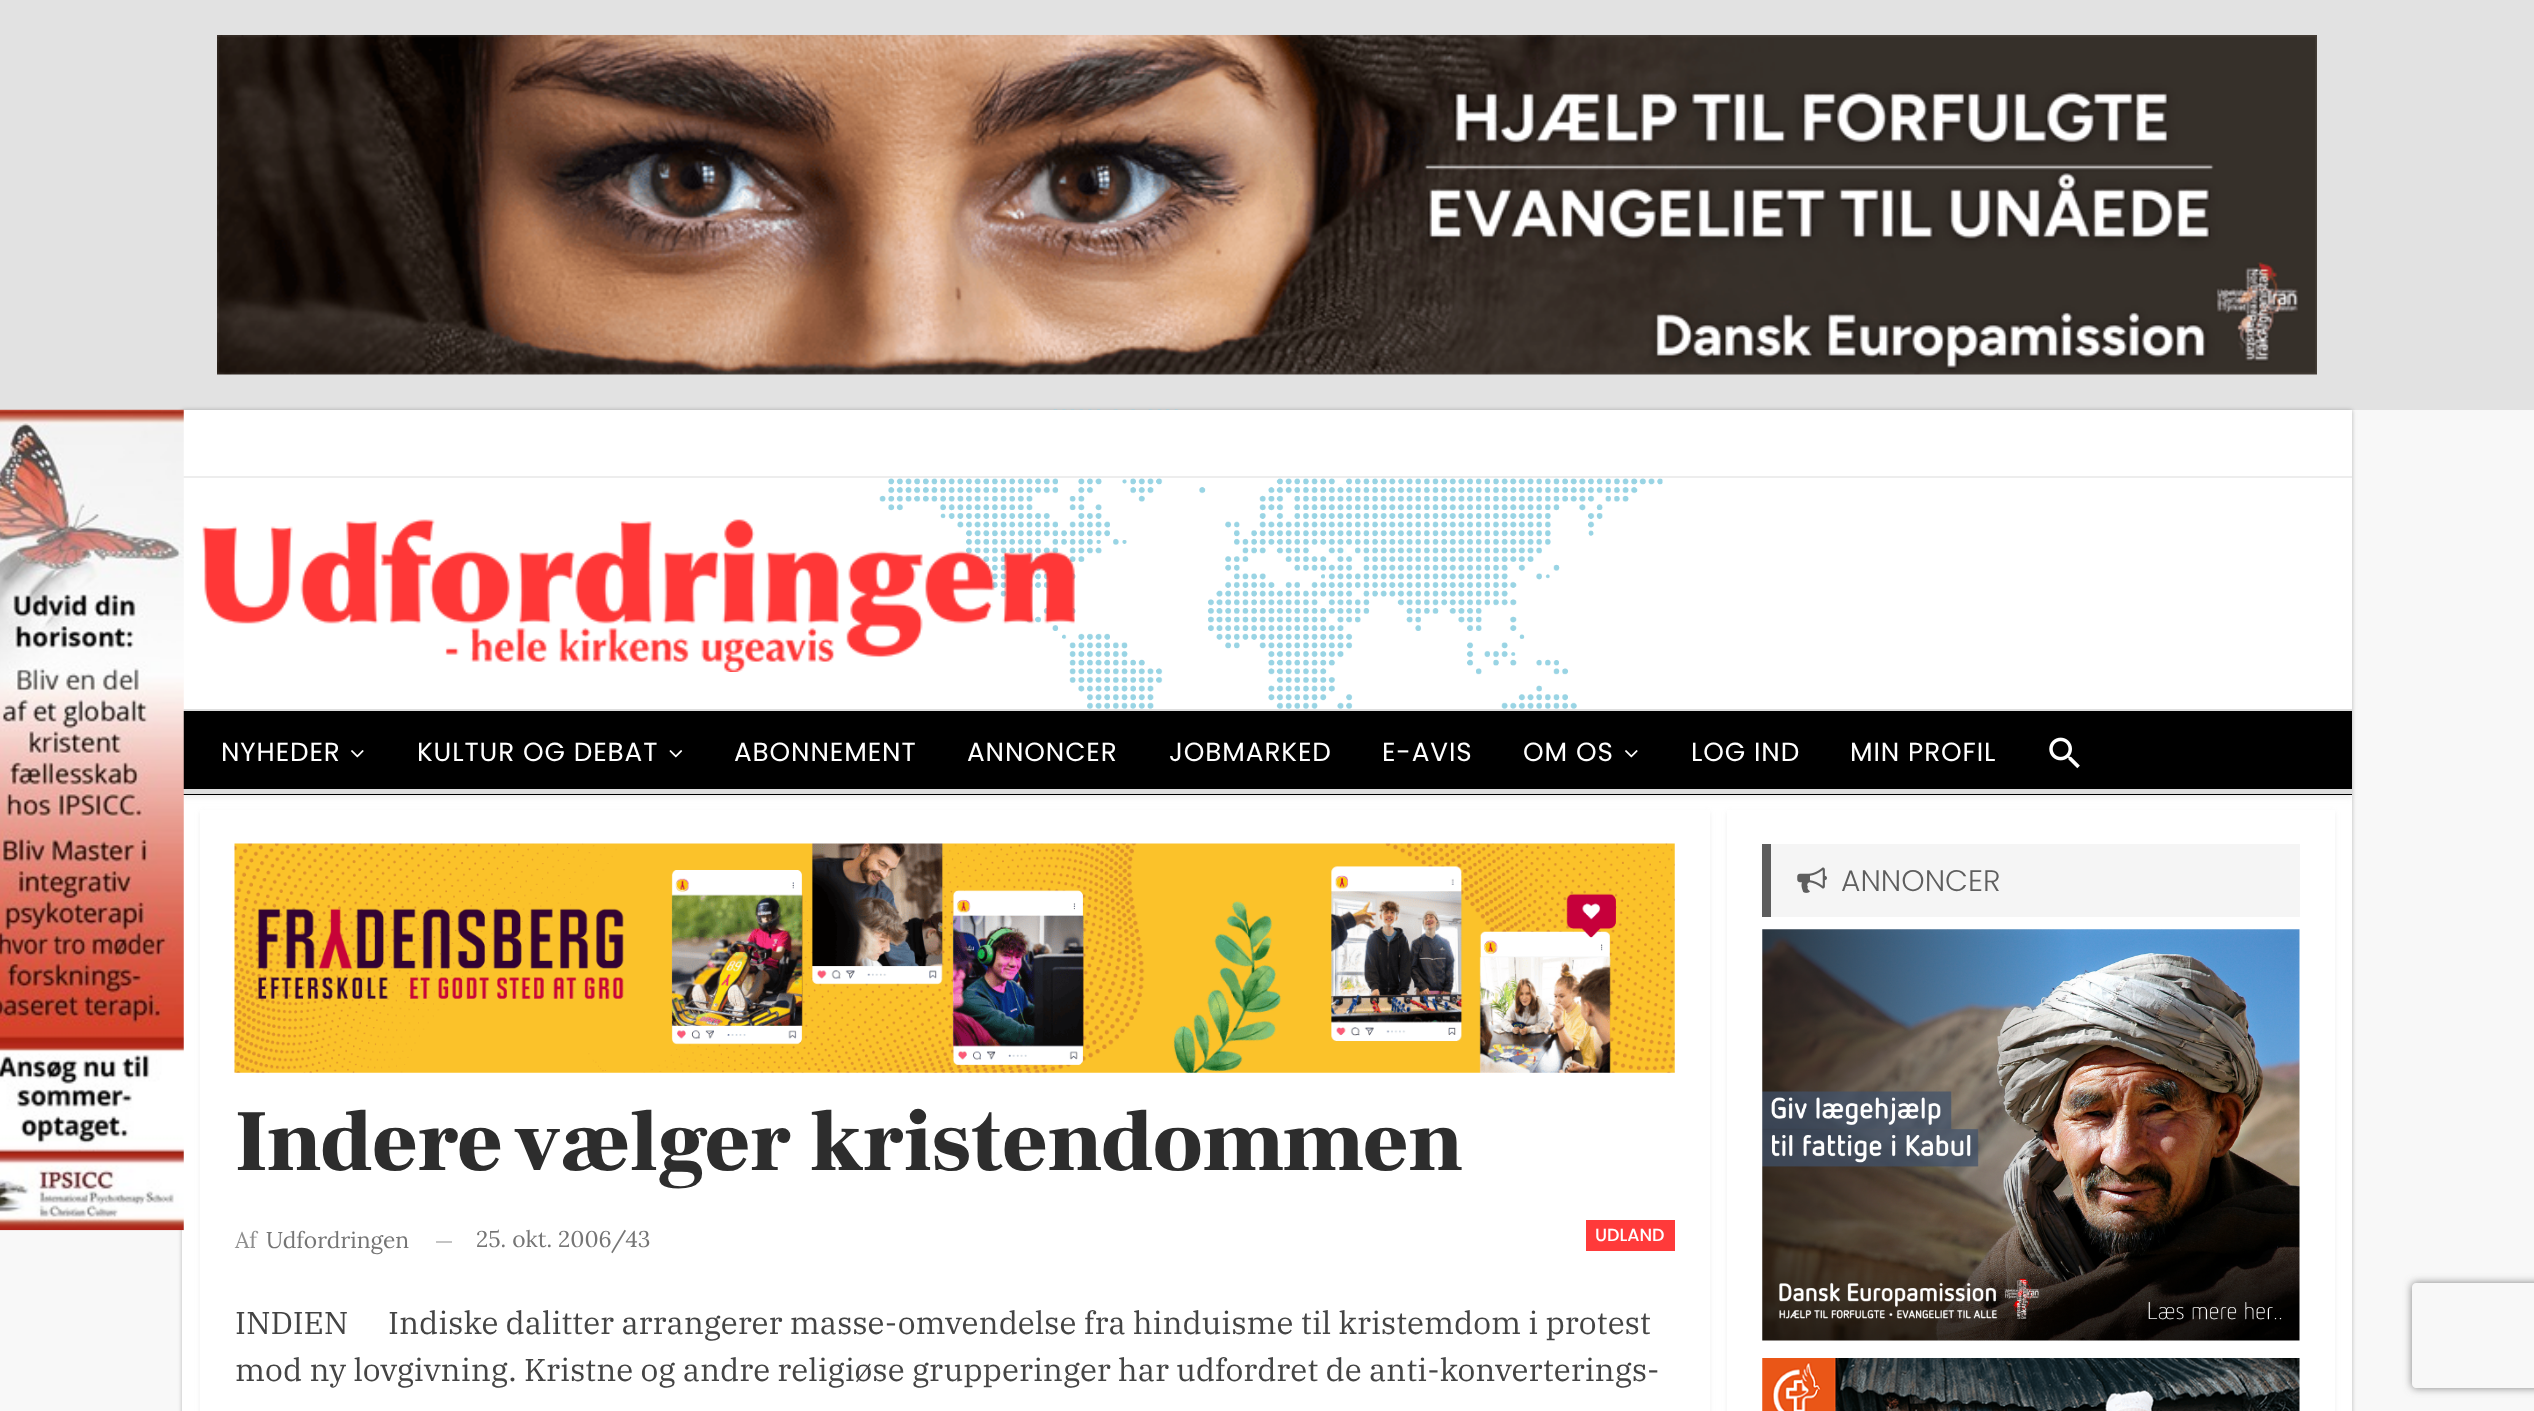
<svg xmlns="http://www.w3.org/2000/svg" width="2534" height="1411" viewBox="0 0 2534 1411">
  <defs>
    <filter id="blur1" x="-50%" y="-200%" width="200%" height="500%"><feGaussianBlur stdDeviation="2"/></filter>
    <filter id="blur2" x="-50%" y="-200%" width="200%" height="500%"><feGaussianBlur stdDeviation="2.5"/></filter>
    <clipPath id="clip1"><path d="M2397 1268H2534V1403H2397ZM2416 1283H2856C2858 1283 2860 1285 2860 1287V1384C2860 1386 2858 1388 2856 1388H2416C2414 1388 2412 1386 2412 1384V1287C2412 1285 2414 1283 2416 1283Z" clip-rule="evenodd"/></clipPath>
    <filter id="blur3" x="-50%" y="-200%" width="200%" height="500%"><feGaussianBlur stdDeviation="4.5"/></filter>
  </defs>
  <rect width="100%" height="100%" fill="#f8f8f8"/>
  <rect x="0" y="0" width="2534" height="410" fill="#e2e2e2"/>
  <image x="217" y="35" width="2100" height="340" href="img1.png"/>
  <rect x="182" y="410" width="2170" height="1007" fill="#000000" fill-opacity="0.27" filter="url(#blur1)"/>
  <rect x="182" y="795" width="2170" height="616" fill="#ffffff"/>
  <rect x="182" y="413" width="2170" height="385" fill="#cccccc" fill-opacity="0.3" filter="url(#blur2)"/>
  <rect x="183" y="478" width="2169" height="231" fill="#ffffff"/>
  <image x="879" y="409" width="784" height="300" href="img3.png"/>
  <rect x="183" y="410" width="2169" height="66" fill="#ffffff"/>
  <rect x="182" y="476" width="2170" height="2" fill="#ededed"/>
  <rect x="183" y="711" width="2169" height="84" fill="#000000"/>
  <rect x="182" y="709" width="2170" height="2" fill="#dedede"/>
  <rect x="182" y="789" width="2170" height="5" fill="#dedede"/>
  <image x="0" y="409" width="184" height="822" href="img2.png"/>
  <image x="202" y="519" width="873" height="153" href="img4.png"/>
  <text x="221" y="761" font-family="Poppins" font-size="26.25" letter-spacing="0.9" fill="#ffffff">NYHEDER</text>
  <image x="351" y="750" width="13" height="8" href="img5.png"/>
  <text x="417" y="761" font-family="Poppins" font-size="26.25" letter-spacing="0.9" fill="#ffffff">KULTUR OG DEBAT</text>
  <image x="669" y="750" width="14" height="8" href="img6.png"/>
  <text x="734" y="761" font-family="Poppins" font-size="26.25" letter-spacing="0.9" fill="#ffffff">ABONNEMENT</text>
  <text x="967" y="761" font-family="Poppins" font-size="26.25" letter-spacing="0.9" fill="#ffffff">ANNONCER</text>
  <text x="1169" y="761" font-family="Poppins" font-size="26.25" letter-spacing="0.9" fill="#ffffff">JOBMARKED</text>
  <text x="1382" y="761" font-family="Poppins" font-size="26.25" letter-spacing="0.9" fill="#ffffff">E-AVIS</text>
  <text x="1523" y="761" font-family="Poppins" font-size="26.25" letter-spacing="0.9" fill="#ffffff">OM OS</text>
  <image x="1625" y="750" width="13" height="8" href="img5.png"/>
  <text x="1691" y="761" font-family="Poppins" font-size="26.25" letter-spacing="0.9" fill="#ffffff">LOG IND</text>
  <text x="1850" y="761" font-family="Poppins" font-size="26.25" letter-spacing="0.9" fill="#ffffff">MIN PROFIL</text>
  <image x="2049" y="737" width="31" height="32" href="img7.png"/>
  <rect x="1727" y="812" width="608" height="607" fill="#cccccc" fill-opacity="0.3" filter="url(#blur2)"/>
  <rect x="1727" y="810" width="608" height="601" fill="#ffffff"/>
  <rect x="1771" y="844" width="529" height="73" fill="#f5f5f5"/>
  <rect x="1762" y="844" width="9" height="73" fill="#5e5e5e"/>
  <image x="1797" y="867" width="30" height="26" href="img8.png"/>
  <text x="1841" y="891" font-family="Poppins" font-size="29.75" font-weight="300" fill="#5e5e5e">ANNONCER</text>
  <image x="1762" y="929" width="538" height="412" href="img9.png"/>
  <image x="1762" y="1358" width="538" height="53" href="img10.png"/>
  <rect x="200" y="812" width="1510" height="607" fill="#cccccc" fill-opacity="0.3" filter="url(#blur2)"/>
  <rect x="200" y="810" width="1510" height="601" fill="#ffffff"/>
  <image x="234" y="843" width="1441" height="230" href="img11.png"/>
  <text x="235" y="1170" font-family="Frank Ruhl Libre" font-size="87.5" font-weight="900" fill="#2d2d2d">Indere vælger kristendommen</text>
  <text x="235" y="1248" font-family="Lora" font-size="22.75" fill="#8f8f8f">Af</text>
  <text x="266" y="1248" font-family="Lora" font-size="22.75" fill="#757575">Udfordringen</text>
  <rect x="436" y="1241" width="16" height="2" fill="#c4c4c4"/>
  <text x="476" y="1247" font-family="Lora" font-size="22.75" fill="#757575">25. okt. 2006/43</text>
  <rect x="1586" y="1220" width="89" height="31" fill="#ff3a3a"/>
  <text x="1595" y="1241" font-family="Poppins" font-size="17.5" font-weight="500" fill="#ffffff">UDLAND</text>
  <text x="235" y="1334" font-family="IBM Plex Serif" font-size="31.5" fill="#444444">INDIEN</text>
  <text x="388" y="1334" font-family="IBM Plex Serif" font-size="31.5" fill="#444444">Indiske dalitter arrangerer masse-omvendelse fra hinduisme til kristemdom i protest</text>
  <text x="235" y="1381" font-family="IBM Plex Serif" font-size="31.5" fill="#444444">mod ny lovgivning. Kristne og andre religiøse grupperinger har udfordret de anti-konverterings-</text>
  <g clip-path="url(#clip1)">
    <rect x="2412" y="1283" width="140" height="105" rx="4" fill="#808080" filter="url(#blur3)"/>
  </g>
</svg>
